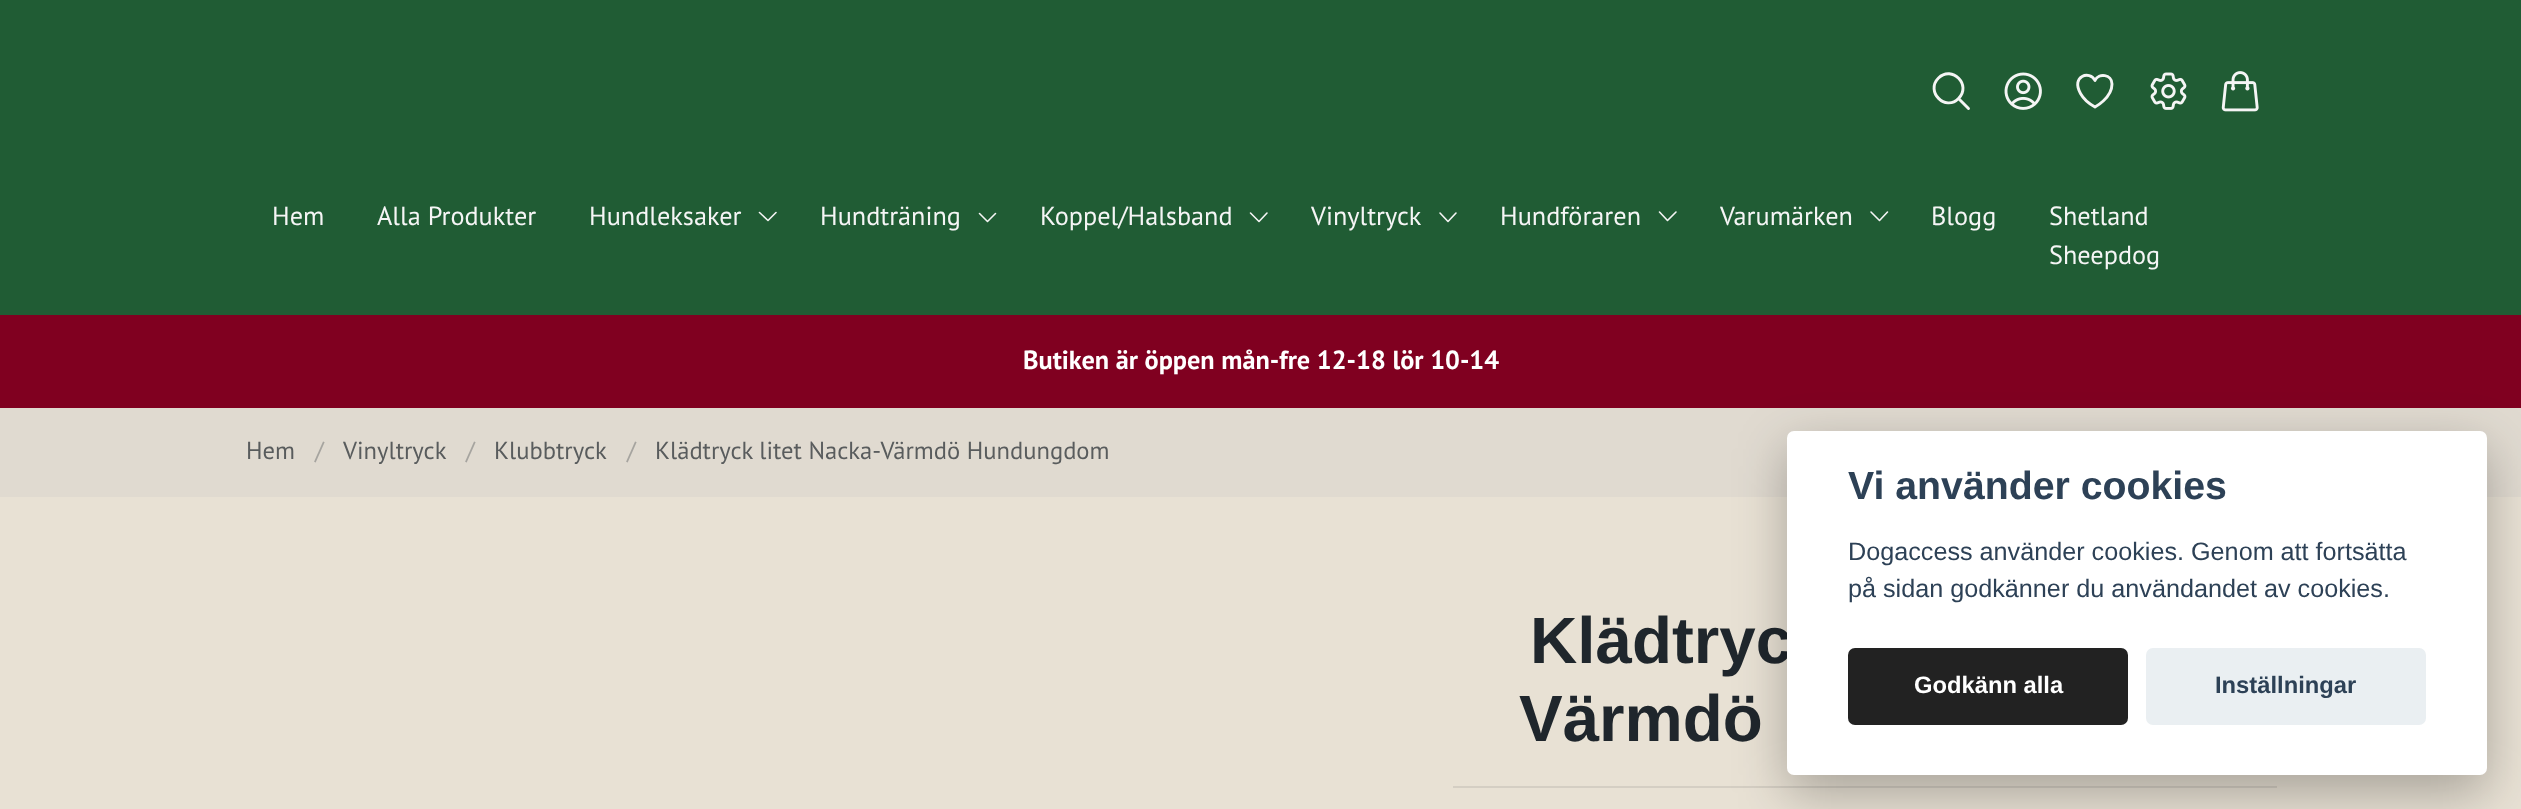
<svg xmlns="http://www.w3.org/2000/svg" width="2521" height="809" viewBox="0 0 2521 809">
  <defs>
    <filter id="blur1" x="-50%" y="-200%" width="200%" height="500%"><feGaussianBlur stdDeviation="26"/></filter>
  </defs>
  <rect width="100%" height="100%" fill="#e8e1d4"/>
  <rect x="0" y="0" width="2521" height="315" fill="#205c34"/>
  <path d="M1968.5 108.5L1958.5 98.5M1958.5 98.5C1972 85 1952 65 1938.5 78C1925 91.5 1945.5 112 1958.5 98.5Z" fill="none" stroke="#f5f5f5" stroke-width="2.9" stroke-linecap="round" stroke-linejoin="round"/>
  <image x="2004" y="72" width="38" height="38" href="img1.png"/>
  <path d="M2112 84C2112 74.5 2098.5 72.5 2095 80.5C2090 70 2070.5 76 2080.5 93.5C2083.5 99 2089.5 104 2095 107C2095 107 2112 98 2112 84Z" fill="none" stroke="#f5f5f5" stroke-width="2.9" stroke-linecap="round" stroke-linejoin="round"/>
  <image x="2150" y="72" width="37" height="38" href="img2.png"/>
  <image x="2221" y="71" width="38" height="41" href="img3.png"/>
  <text x="272" y="225" font-family="PT Sans" font-size="26.25" fill="#f5f5f5">Hem</text>
  <text x="377" y="225" font-family="PT Sans" font-size="26.25" fill="#f5f5f5">Alla Produkter</text>
  <text x="589" y="225" font-family="PT Sans" font-size="26.25" fill="#f5f5f5">Hundleksaker</text>
  <path d="M776 212.5L768 220.5L759.5 212.5" fill="none" stroke="#f5f5f5" stroke-width="1.6" stroke-linecap="round" stroke-linejoin="round"/>
  <text x="820" y="225" font-family="PT Sans" font-size="26.25" fill="#f5f5f5">Hundträning</text>
  <path d="M995.5 213.5L987.5 221.5L979.5 213.5" fill="none" stroke="#f5f5f5" stroke-width="1.6" stroke-linecap="round" stroke-linejoin="round"/>
  <text x="1040" y="225" font-family="PT Sans" font-size="26.25" fill="#f5f5f5">Koppel/Halsband</text>
  <path d="M1267 213L1259 221.5L1250.5 213" fill="none" stroke="#f5f5f5" stroke-width="1.6" stroke-linecap="round" stroke-linejoin="round"/>
  <text x="1311" y="225" font-family="PT Sans" font-size="26.25" fill="#f5f5f5">Vinyltryck</text>
  <path d="M1456 213L1448 221.5L1440 213" fill="none" stroke="#f5f5f5" stroke-width="1.6" stroke-linecap="round" stroke-linejoin="round"/>
  <text x="1500" y="225" font-family="PT Sans" font-size="26.25" fill="#f5f5f5">Hundföraren</text>
  <path d="M1676 212L1667.5 220.5L1659.5 212" fill="none" stroke="#f5f5f5" stroke-width="1.6" stroke-linecap="round" stroke-linejoin="round"/>
  <text x="1720" y="225" font-family="PT Sans" font-size="26.25" fill="#f5f5f5">Varumärken</text>
  <path d="M1887.5 212L1879.5 220.5L1871 212" fill="none" stroke="#f5f5f5" stroke-width="1.6" stroke-linecap="round" stroke-linejoin="round"/>
  <text x="1931" y="225" font-family="PT Sans" font-size="26.25" fill="#f5f5f5">Blogg</text>
  <text x="2049" y="225" font-family="PT Sans" font-size="26.25" fill="#f5f5f5">Shetland</text>
  <text x="2049" y="264" font-family="PT Sans" font-size="26.25" fill="#f5f5f5">Sheepdog</text>
  <rect x="0" y="315" width="2521" height="93" fill="#800020"/>
  <text x="1023" y="369" font-family="PT Sans" font-size="26.25" font-weight="bold" fill="#ffffff">Butiken är öppen mån-fre 12-18 lör 10-14</text>
  <rect x="0" y="408" width="2521" height="89" fill="#e0dad0"/>
  <text x="246" y="459" font-family="PT Sans" font-size="24.6" fill="#595c5d">Hem</text>
  <text x="315" y="459" font-family="PT Sans" font-size="24.6" fill="#a6a49f">/</text>
  <text x="343" y="459" font-family="PT Sans" font-size="24.6" fill="#595c5d">Vinyltryck</text>
  <text x="466" y="459" font-family="PT Sans" font-size="24.6" fill="#a6a49f">/</text>
  <text x="494" y="459" font-family="PT Sans" font-size="24.6" fill="#595c5d">Klubbtryck</text>
  <text x="627" y="459" font-family="PT Sans" font-size="24.6" fill="#a6a49f">/</text>
  <text x="655" y="459" font-family="PT Sans" font-size="24.6" fill="#595c5d">Klädtryck litet Nacka-Värmdö Hundungdom</text>
  <text x="1530" y="663" font-family="Liberation Sans" font-size="65.5" font-weight="bold" fill="#1f262c">Klädtryc</text>
  <text x="1519" y="741" font-family="Liberation Sans" font-size="65.5" font-weight="bold" fill="#1f262c">Värmdö</text>
  <rect x="1453" y="786" width="824" height="2" fill="#d4cec3"/>
  <rect x="1787" y="448" width="700" height="345" rx="7" fill="#020203" fill-opacity="0.28" filter="url(#blur1)"/>
  <rect x="1787" y="431" width="700" height="344" rx="7" fill="#ffffff"/>
  <text x="1848" y="499" font-family="Liberation Sans" font-size="39.25" font-weight="bold" fill="#2d4156">Vi använder cookies</text>
  <text x="1848" y="560" font-family="Liberation Sans" font-size="25.2" fill="#2d4156">Dogaccess använder cookies. Genom att fortsätta</text>
  <text x="1848" y="597" font-family="Liberation Sans" font-size="25.2" fill="#2d4156">på sidan godkänner du användandet av cookies.</text>
  <rect x="1848" y="648" width="280" height="77" rx="7" fill="#222222"/>
  <text x="1914" y="693" font-family="Liberation Sans" font-size="23.75" font-weight="bold" fill="#ffffff">Godkänn alla</text>
  <rect x="2146" y="648" width="280" height="77" rx="7" fill="#eaeff2"/>
  <text x="2215" y="693" font-family="Liberation Sans" font-size="23.75" font-weight="bold" fill="#2d4156">Inställningar</text>
</svg>
